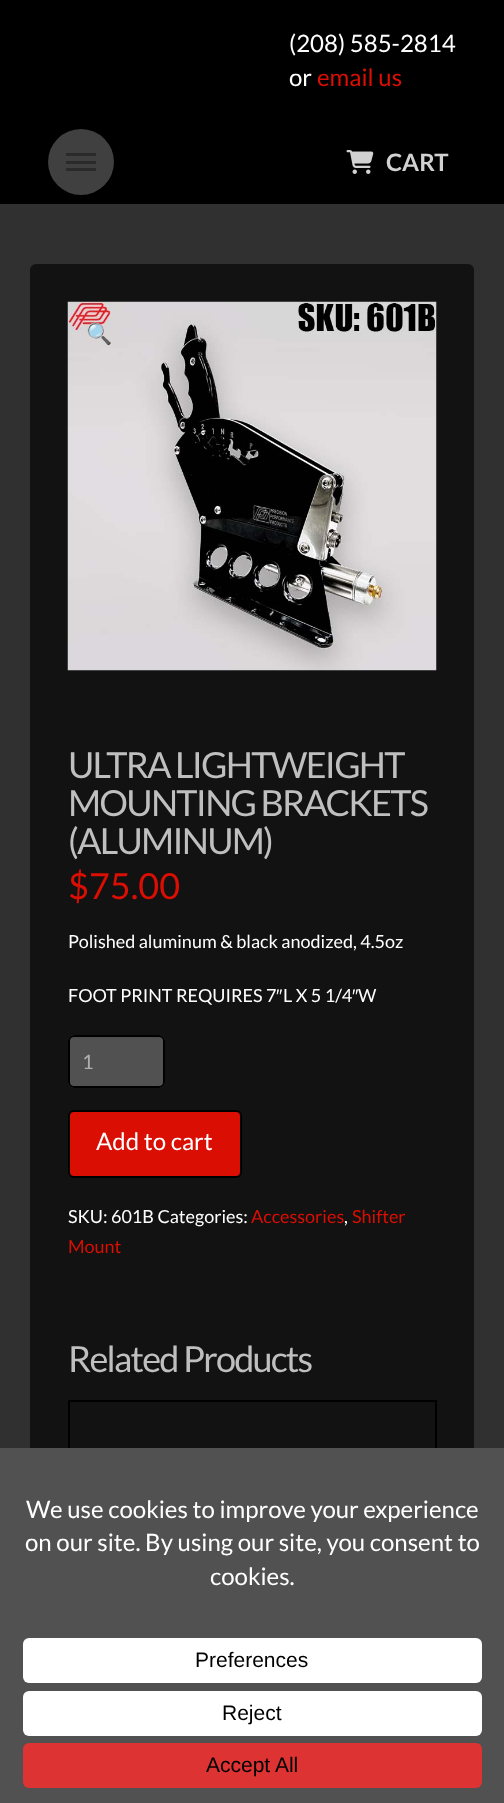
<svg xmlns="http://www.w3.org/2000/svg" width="504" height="1803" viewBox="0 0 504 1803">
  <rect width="100%" height="100%" fill="#303030"/>
  <rect x="0" y="0" width="504" height="204" fill="#000000"/>
  <text x="289" y="52" font-family="Lato" font-size="24" fill="#ffffff">(208) 585-2814</text>
  <text x="289" y="86" font-family="Lato" font-size="24" fill="#ffffff">or</text>
  <text x="317" y="86" font-family="Lato" font-size="24" fill="#da0e02">email us</text>
  <circle cx="81" cy="162" r="33" fill="#404040"/>
  <rect x="66" y="153" width="30" height="3" fill="#2a2a2a"/>
  <rect x="66" y="161" width="30" height="3" fill="#2a2a2a"/>
  <rect x="66" y="168" width="30" height="3" fill="#2a2a2a"/>
  <image x="346" y="150" width="28" height="24" href="img1.png"/>
  <text x="386" y="171" font-family="Lato" font-size="24" font-weight="bold" fill="#d1d1d1">CART</text>
  <rect x="30" y="264" width="444" height="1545" rx="6" fill="#121212"/>
  <image x="67" y="301" width="370" height="370" href="img2.png"/>
  <text x="86" y="341" font-family="Noto Color Emoji" font-size="21" fill="#da0e02">🔍</text>
  <text x="68" y="778" font-family="Lato" font-size="36" letter-spacing="-1.75" fill="#bfbfbf">ULTRA LIGHTWEIGHT</text>
  <text x="68" y="816" font-family="Lato" font-size="36" letter-spacing="-1.75" fill="#bfbfbf">MOUNTING BRACKETS</text>
  <text x="68" y="854" font-family="Lato" font-size="36" letter-spacing="-1.75" fill="#bfbfbf">(ALUMINUM)</text>
  <text x="68" y="899" font-family="Lato" font-size="36" fill="#da0e02">$75.00</text>
  <text x="68" y="948" font-family="Lato" font-size="18" fill="#ffffff">Polished aluminum &amp; black anodized, 4.5oz</text>
  <text x="68" y="1002" font-family="Lato" font-size="18" fill="#ffffff">FOOT PRINT REQUIRES 7</text>
  <text x="276" y="1002" font-family="Liberation Sans" font-size="18" fill="#ffffff">″</text>
  <text x="283" y="1002" font-family="Lato" font-size="18" fill="#ffffff">L X 5 1/4</text>
  <text x="352" y="1002" font-family="Liberation Sans" font-size="18" fill="#ffffff">″</text>
  <text x="358" y="1002" font-family="Lato" font-size="18" fill="#ffffff">W</text>
  <rect x="68" y="1035" width="97" height="53" rx="6" fill="#515151"/>
  <path d="M74 1038H159C161 1038 164 1040 164 1042C164 1039 162 1037 159 1037H74C71 1037 69 1039 69 1042C69 1040 71 1038 74 1038Z" fill="#4b4b4b"/>
  <rect x="69" y="1036" width="95" height="51" rx="5" fill="none" stroke="#000000" stroke-width="2"/>
  <text x="82" y="1069" font-family="Lato" font-size="20" fill="#b0b0b0">1</text>
  <rect x="69" y="1111" width="172" height="66" rx="5" fill="#da0e02" stroke="#000000" stroke-width="2"/>
  <text x="96" y="1150" font-family="Lato" font-size="24" fill="#ffffff">Add to cart</text>
  <text x="68" y="1223" font-family="Lato" font-size="18" fill="#ffffff">SKU: 601B Categories:</text>
  <text x="251" y="1223" font-family="Lato" font-size="18" fill="#da0e02">Accessories</text>
  <text x="344" y="1223" font-family="Lato" font-size="18" fill="#ffffff">,</text>
  <text x="352" y="1223" font-family="Lato" font-size="18" fill="#da0e02">Shifter</text>
  <text x="68" y="1253" font-family="Lato" font-size="18" fill="#da0e02">Mount</text>
  <text x="68" y="1372" font-family="Lato" font-size="36" letter-spacing="-1.75" fill="#bfbfbf">Related Products</text>
  <rect x="69" y="1401" width="367" height="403" fill="none" stroke="#000000" stroke-width="2"/>
  <rect x="0" y="1448" width="504" height="355" fill="#515151"/>
  <text x="26" y="1518" font-family="Lato" font-size="24" fill="#ffffff">We use cookies to improve your experience</text>
  <text x="25" y="1551" font-family="Lato" font-size="24" fill="#ffffff">on our site. By using our site, you consent to</text>
  <text x="210" y="1585" font-family="Lato" font-size="24" fill="#ffffff">cookies.</text>
  <rect x="23" y="1638" width="459" height="45" rx="6" fill="#ffffff"/>
  <text x="195" y="1667" font-family="Liberation Sans" font-size="21" fill="#000000">Preferences</text>
  <rect x="23" y="1691" width="459" height="45" rx="6" fill="#ffffff"/>
  <text x="222" y="1720" font-family="Liberation Sans" font-size="21" fill="#000000">Reject</text>
  <rect x="23" y="1743" width="459" height="45" rx="6" fill="#dd3333"/>
  <text x="206" y="1772" font-family="Liberation Sans" font-size="21" fill="#000000">Accept All</text>
</svg>
